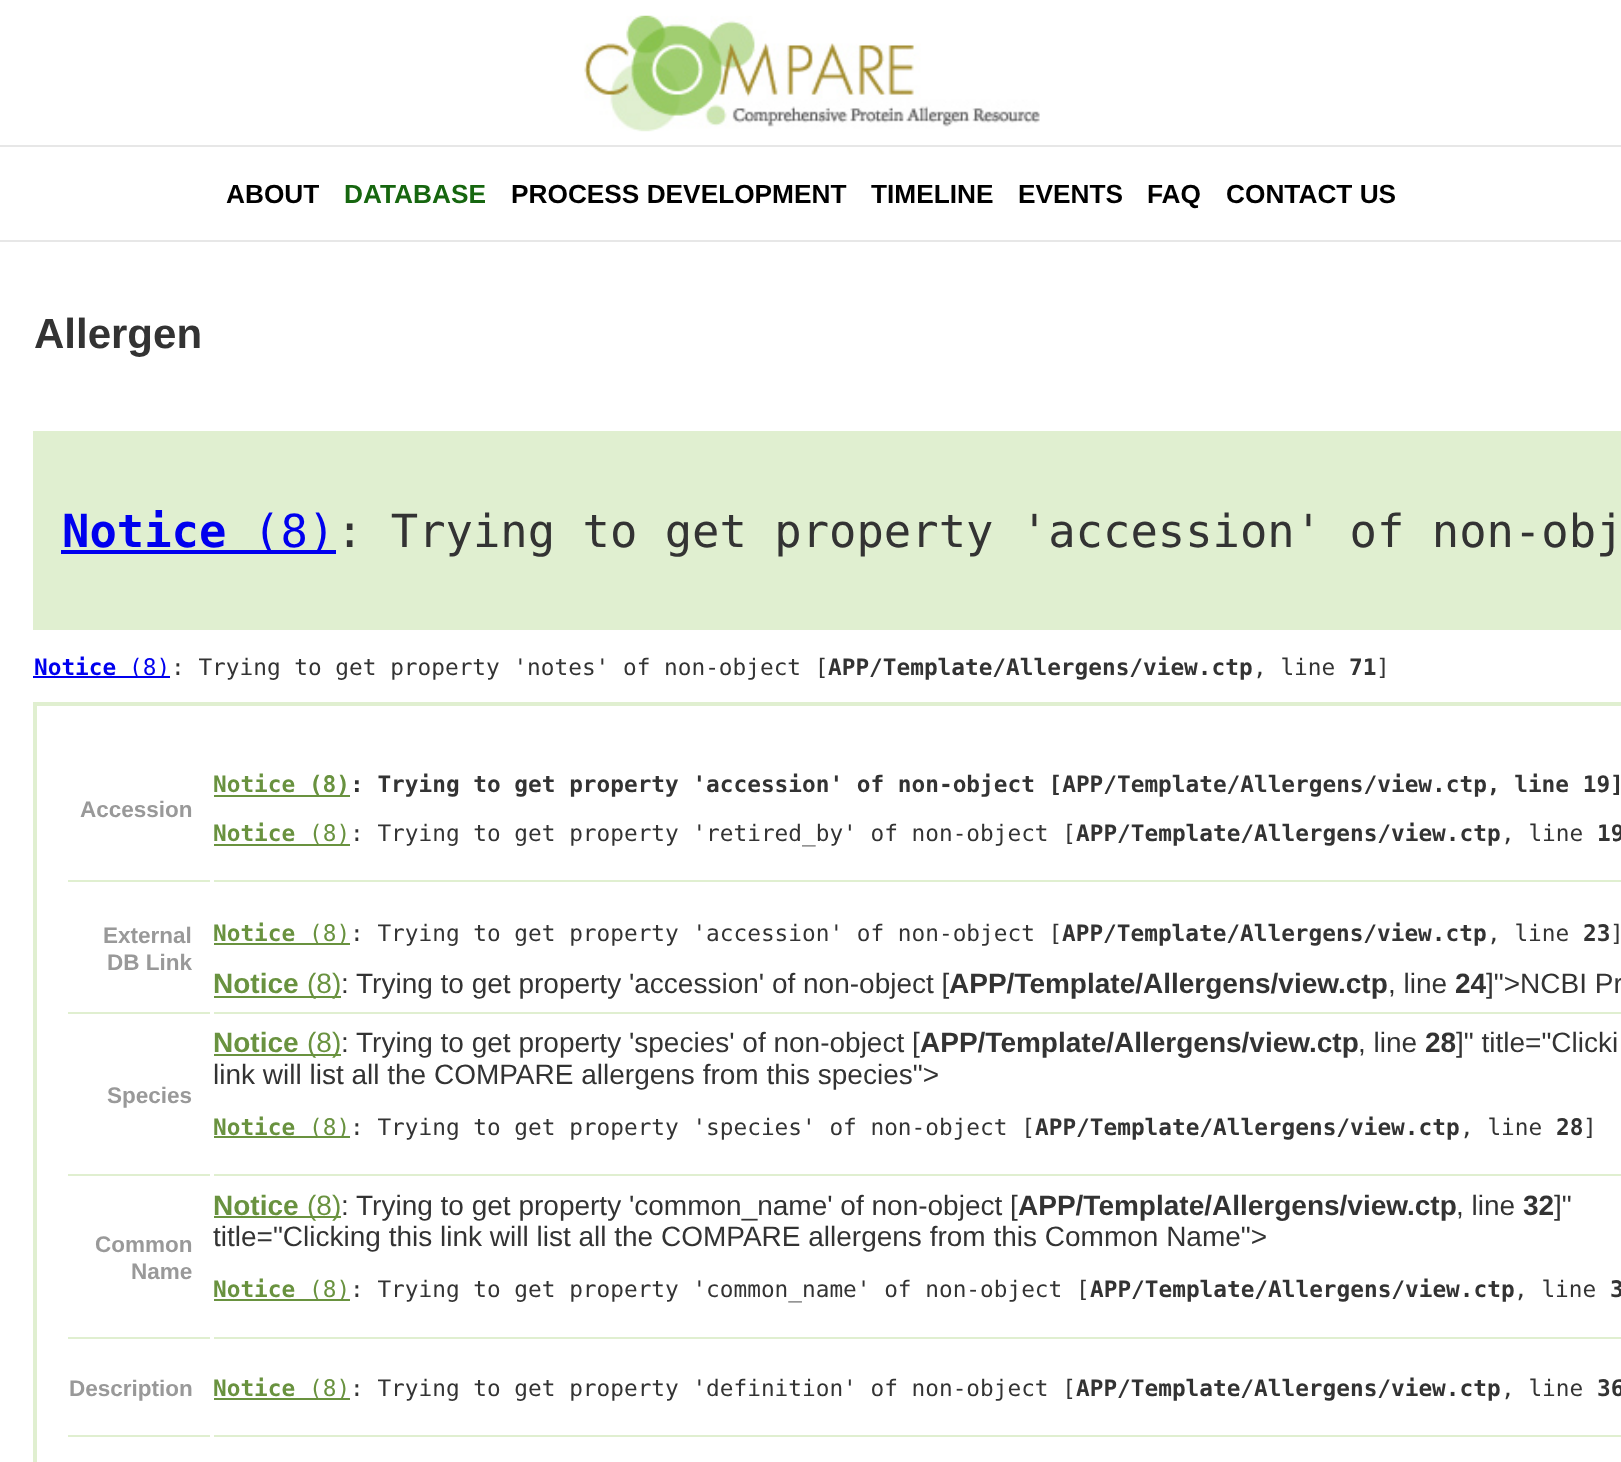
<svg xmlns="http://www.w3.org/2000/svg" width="1621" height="1462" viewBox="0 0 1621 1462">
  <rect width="100%" height="100%" fill="#ffffff"/>
  <image x="584" y="15" width="456" height="117" href="img1.png"/>
  <rect x="0" y="145" width="1621" height="2" fill="#e7e7e7"/>
  <rect x="0" y="240" width="1621" height="2" fill="#e7e7e7"/>
  <text x="226" y="203" font-family="Liberation Sans" font-size="26.25" font-weight="bold" fill="#000000">ABOUT</text>
  <text x="344" y="203" font-family="Liberation Sans" font-size="26.25" font-weight="bold" fill="#16660f">DATABASE</text>
  <text x="511" y="203" font-family="Liberation Sans" font-size="26.25" font-weight="bold" fill="#000000">PROCESS DEVELOPMENT</text>
  <text x="871" y="203" font-family="Liberation Sans" font-size="26.25" font-weight="bold" fill="#000000">TIMELINE</text>
  <text x="1018" y="203" font-family="Liberation Sans" font-size="26.25" font-weight="bold" fill="#000000">EVENTS</text>
  <text x="1147" y="203" font-family="Liberation Sans" font-size="26.25" font-weight="bold" fill="#000000">FAQ</text>
  <text x="1226" y="203" font-family="Liberation Sans" font-size="26.25" font-weight="bold" fill="#000000">CONTACT US</text>
  <text x="34" y="348" font-family="Liberation Sans" font-size="42" font-weight="bold" fill="#333333">Allergen</text>
  <rect x="33" y="431" width="1588" height="199" fill="#e0efd0"/>
  <text x="62" y="547" font-family="DejaVu Sans Mono" font-size="45.5" font-weight="bold" fill="#0000ee">Notice</text>
  <rect x="61" y="550" width="275" height="4" fill="#0000ee"/>
  <text x="253" y="547" font-family="DejaVu Sans Mono" font-size="45.5" fill="#0000ee">(8)</text>
  <text x="336" y="547" font-family="DejaVu Sans Mono" font-size="45.5" fill="#333333">: Trying to get property 'accession' of non-obj</text>
  <text x="34" y="675" font-family="DejaVu Sans Mono" font-size="22.75" font-weight="bold" fill="#0000ee">Notice</text>
  <rect x="33" y="676" width="137" height="2" fill="#0000ee"/>
  <text x="129" y="675" font-family="DejaVu Sans Mono" font-size="22.75" fill="#0000ee">(8)</text>
  <text x="171" y="675" font-family="DejaVu Sans Mono" font-size="22.75" fill="#333333">: Trying to get property 'notes' of non-object [</text>
  <text x="828" y="675" font-family="DejaVu Sans Mono" font-size="22.75" font-weight="bold" fill="#333333">APP/Template/Allergens/view.ctp</text>
  <text x="1253" y="675" font-family="DejaVu Sans Mono" font-size="22.75" fill="#333333">, line</text>
  <text x="1349" y="675" font-family="DejaVu Sans Mono" font-size="22.75" font-weight="bold" fill="#333333">71</text>
  <text x="1376" y="675" font-family="DejaVu Sans Mono" font-size="22.75" fill="#333333">]</text>
  <rect x="35" y="704" width="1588" height="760" fill="none" stroke="#e0efd0" stroke-width="4"/>
  <rect x="68" y="880" width="142" height="2" fill="#e0efd0"/>
  <text x="80" y="817" font-family="Liberation Sans" font-size="22.5" font-weight="bold" fill="#999999">Accession</text>
  <rect x="214" y="880" width="1407" height="2" fill="#e0efd0"/>
  <text x="213" y="792" font-family="DejaVu Sans Mono" font-size="22.75" font-weight="bold" fill="#69923f">Notice (8)</text>
  <rect x="214" y="795" width="136" height="2" fill="#69923f"/>
  <text x="350" y="792" font-family="DejaVu Sans Mono" font-size="22.75" font-weight="bold" fill="#333333">: Trying to get property 'accession' of non-object [APP/Template/Allergens/view.ctp, line 19]</text>
  <text x="213" y="841" font-family="DejaVu Sans Mono" font-size="22.75" font-weight="bold" fill="#69923f">Notice</text>
  <text x="309" y="841" font-family="DejaVu Sans Mono" font-size="22.75" fill="#69923f">(8)</text>
  <rect x="214" y="844" width="136" height="2" fill="#69923f"/>
  <text x="350" y="841" font-family="DejaVu Sans Mono" font-size="22.75" fill="#333333">: Trying to get property 'retired_by' of non-object [</text>
  <text x="1076" y="841" font-family="DejaVu Sans Mono" font-size="22.75" font-weight="bold" fill="#333333">APP/Template/Allergens/view.ctp</text>
  <text x="1501" y="841" font-family="DejaVu Sans Mono" font-size="22.75" fill="#333333">, line</text>
  <text x="1597" y="841" font-family="DejaVu Sans Mono" font-size="22.75" font-weight="bold" fill="#333333">19</text>
  <rect x="68" y="1012" width="142" height="2" fill="#e0efd0"/>
  <text x="103" y="943" font-family="Liberation Sans" font-size="22.5" font-weight="bold" fill="#999999">External</text>
  <text x="107" y="970" font-family="Liberation Sans" font-size="22.5" font-weight="bold" fill="#999999">DB Link</text>
  <rect x="214" y="1012" width="1407" height="2" fill="#e0efd0"/>
  <text x="213" y="941" font-family="DejaVu Sans Mono" font-size="22.75" font-weight="bold" fill="#69923f">Notice</text>
  <rect x="214" y="943" width="136" height="2" fill="#69923f"/>
  <text x="309" y="941" font-family="DejaVu Sans Mono" font-size="22.75" fill="#69923f">(8)</text>
  <text x="350" y="941" font-family="DejaVu Sans Mono" font-size="22.75" fill="#333333">: Trying to get property 'accession' of non-object [</text>
  <text x="1062" y="941" font-family="DejaVu Sans Mono" font-size="22.75" font-weight="bold" fill="#333333">APP/Template/Allergens/view.ctp</text>
  <text x="1487" y="941" font-family="DejaVu Sans Mono" font-size="22.75" fill="#333333">, line</text>
  <text x="1583" y="941" font-family="DejaVu Sans Mono" font-size="22.75" font-weight="bold" fill="#333333">23</text>
  <text x="1610" y="941" font-family="DejaVu Sans Mono" font-size="22.75" fill="#333333">]</text>
  <text x="213" y="993" font-family="Liberation Sans" font-size="28" font-weight="bold" fill="#69923f">Notice</text>
  <rect x="214" y="996" width="127" height="2" fill="#69923f"/>
  <text x="307" y="993" font-family="Liberation Sans" font-size="28" fill="#69923f">(8)</text>
  <text x="341" y="993" font-family="Liberation Sans" font-size="28" fill="#333333">: Trying to get property 'accession' of non-object [</text>
  <text x="949" y="993" font-family="Liberation Sans" font-size="28" font-weight="bold" fill="#333333">APP/Template/Allergens/view.ctp</text>
  <text x="1388" y="993" font-family="Liberation Sans" font-size="28" fill="#333333">, line</text>
  <text x="1455" y="993" font-family="Liberation Sans" font-size="28" font-weight="bold" fill="#333333">24</text>
  <text x="1486" y="993" font-family="Liberation Sans" font-size="28" fill="#333333">]"&gt;NCBI Pr</text>
  <rect x="68" y="1174" width="142" height="2" fill="#e0efd0"/>
  <text x="107" y="1103" font-family="Liberation Sans" font-size="22.5" font-weight="bold" fill="#999999">Species</text>
  <rect x="214" y="1174" width="1407" height="2" fill="#e0efd0"/>
  <text x="213" y="1052" font-family="Liberation Sans" font-size="28" font-weight="bold" fill="#69923f">Notice</text>
  <rect x="214" y="1054" width="127" height="2" fill="#69923f"/>
  <text x="307" y="1052" font-family="Liberation Sans" font-size="28" fill="#69923f">(8)</text>
  <text x="341" y="1052" font-family="Liberation Sans" font-size="28" fill="#333333">: Trying to get property 'species' of non-object [</text>
  <text x="920" y="1052" font-family="Liberation Sans" font-size="28" font-weight="bold" fill="#333333">APP/Template/Allergens/view.ctp</text>
  <text x="1358" y="1052" font-family="Liberation Sans" font-size="28" fill="#333333">, line</text>
  <text x="1425" y="1052" font-family="Liberation Sans" font-size="28" font-weight="bold" fill="#333333">28</text>
  <text x="1456" y="1052" font-family="Liberation Sans" font-size="28" fill="#333333">]" title="Clicki</text>
  <text x="213" y="1084" font-family="Liberation Sans" font-size="28" fill="#333333">link will list all the COMPARE allergens from this species"&gt;</text>
  <text x="213" y="1135" font-family="DejaVu Sans Mono" font-size="22.75" font-weight="bold" fill="#69923f">Notice</text>
  <rect x="214" y="1136" width="136" height="2" fill="#69923f"/>
  <text x="309" y="1135" font-family="DejaVu Sans Mono" font-size="22.75" fill="#69923f">(8)</text>
  <text x="350" y="1135" font-family="DejaVu Sans Mono" font-size="22.75" fill="#333333">: Trying to get property 'species' of non-object [</text>
  <text x="1035" y="1135" font-family="DejaVu Sans Mono" font-size="22.75" font-weight="bold" fill="#333333">APP/Template/Allergens/view.ctp</text>
  <text x="1460" y="1135" font-family="DejaVu Sans Mono" font-size="22.75" fill="#333333">, line</text>
  <text x="1556" y="1135" font-family="DejaVu Sans Mono" font-size="22.75" font-weight="bold" fill="#333333">28</text>
  <text x="1583" y="1135" font-family="DejaVu Sans Mono" font-size="22.75" fill="#333333">]</text>
  <rect x="68" y="1337" width="142" height="2" fill="#e0efd0"/>
  <text x="95" y="1252" font-family="Liberation Sans" font-size="22.5" font-weight="bold" fill="#999999">Common</text>
  <text x="131" y="1279" font-family="Liberation Sans" font-size="22.5" font-weight="bold" fill="#999999">Name</text>
  <rect x="214" y="1337" width="1407" height="2" fill="#e0efd0"/>
  <text x="213" y="1215" font-family="Liberation Sans" font-size="28" font-weight="bold" fill="#69923f">Notice</text>
  <rect x="214" y="1216" width="127" height="2" fill="#69923f"/>
  <text x="307" y="1215" font-family="Liberation Sans" font-size="28" fill="#69923f">(8)</text>
  <text x="341" y="1215" font-family="Liberation Sans" font-size="28" fill="#333333">: Trying to get property 'common_name' of non-object [</text>
  <text x="1018" y="1215" font-family="Liberation Sans" font-size="28" font-weight="bold" fill="#333333">APP/Template/Allergens/view.ctp</text>
  <text x="1456" y="1215" font-family="Liberation Sans" font-size="28" fill="#333333">, line</text>
  <text x="1523" y="1215" font-family="Liberation Sans" font-size="28" font-weight="bold" fill="#333333">32</text>
  <text x="1554" y="1215" font-family="Liberation Sans" font-size="28" fill="#333333">]"</text>
  <text x="213" y="1246" font-family="Liberation Sans" font-size="28" fill="#333333">title="Clicking this link will list all the COMPARE allergens from this Common Name"&gt;</text>
  <text x="213" y="1297" font-family="DejaVu Sans Mono" font-size="22.75" font-weight="bold" fill="#69923f">Notice</text>
  <rect x="214" y="1299" width="136" height="2" fill="#69923f"/>
  <text x="309" y="1297" font-family="DejaVu Sans Mono" font-size="22.75" fill="#69923f">(8)</text>
  <text x="350" y="1297" font-family="DejaVu Sans Mono" font-size="22.75" fill="#333333">: Trying to get property 'common_name' of non-object [</text>
  <text x="1090" y="1297" font-family="DejaVu Sans Mono" font-size="22.75" font-weight="bold" fill="#333333">APP/Template/Allergens/view.ctp</text>
  <text x="1514" y="1297" font-family="DejaVu Sans Mono" font-size="22.75" fill="#333333">, line</text>
  <text x="1610" y="1297" font-family="DejaVu Sans Mono" font-size="22.75" font-weight="bold" fill="#333333">3</text>
  <rect x="68" y="1435" width="142" height="2" fill="#e0efd0"/>
  <text x="69" y="1396" font-family="Liberation Sans" font-size="22.5" font-weight="bold" fill="#999999">Description</text>
  <rect x="214" y="1435" width="1407" height="2" fill="#e0efd0"/>
  <text x="213" y="1396" font-family="DejaVu Sans Mono" font-size="22.75" font-weight="bold" fill="#69923f">Notice</text>
  <rect x="214" y="1398" width="136" height="2" fill="#69923f"/>
  <text x="309" y="1396" font-family="DejaVu Sans Mono" font-size="22.75" fill="#69923f">(8)</text>
  <text x="350" y="1396" font-family="DejaVu Sans Mono" font-size="22.75" fill="#333333">: Trying to get property 'definition' of non-object [</text>
  <text x="1076" y="1396" font-family="DejaVu Sans Mono" font-size="22.75" font-weight="bold" fill="#333333">APP/Template/Allergens/view.ctp</text>
  <text x="1501" y="1396" font-family="DejaVu Sans Mono" font-size="22.75" fill="#333333">, line</text>
  <text x="1597" y="1396" font-family="DejaVu Sans Mono" font-size="22.75" font-weight="bold" fill="#333333">36</text>
</svg>
